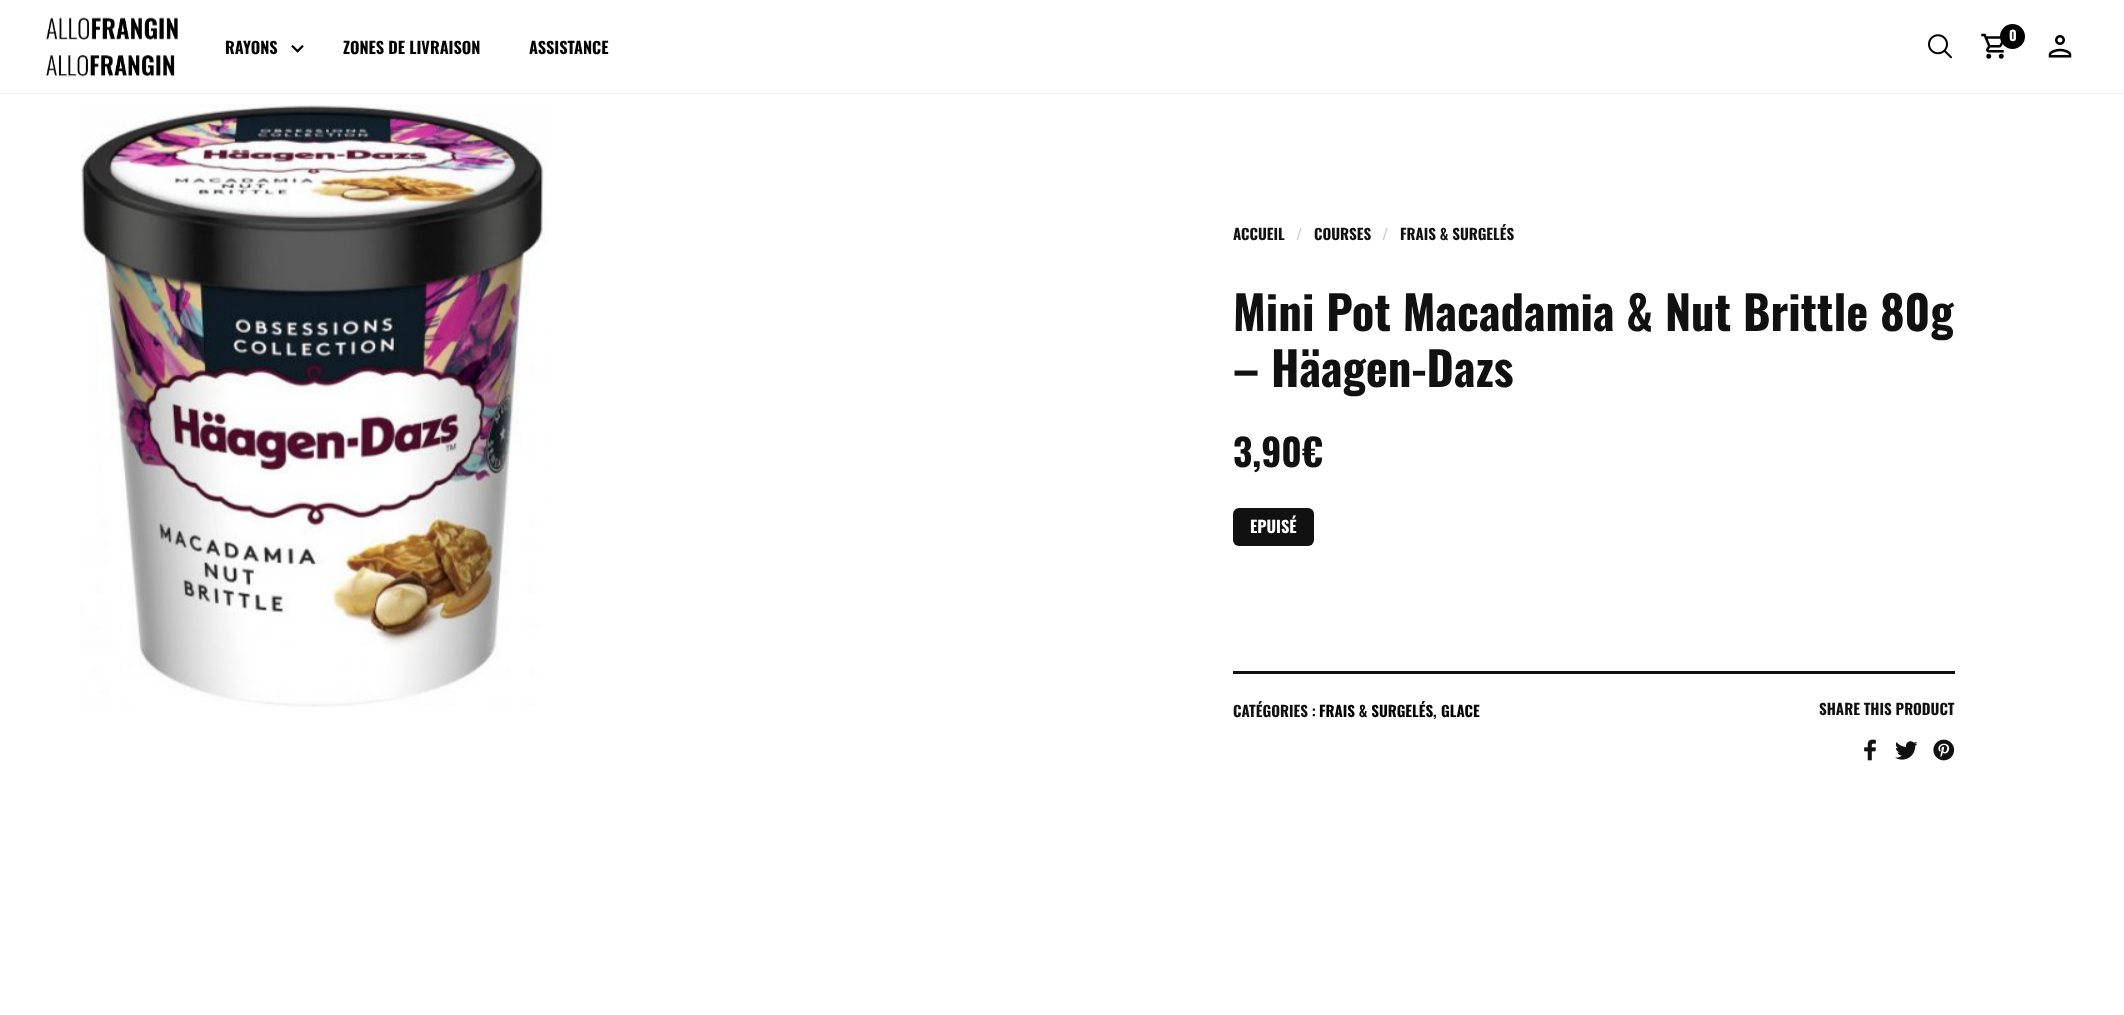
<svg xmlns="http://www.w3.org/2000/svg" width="2124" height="1015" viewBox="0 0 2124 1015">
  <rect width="100%" height="100%" fill="#ffffff"/>
  <rect x="0" y="93" width="2124" height="1" fill="#f4f4f4"/>
  <image x="46" y="17" width="132" height="23" href="img1.png"/>
  <image x="46" y="55" width="129" height="22" href="img2.png"/>
  <image x="1928" y="34" width="24" height="25" href="img3.png"/>
  <image x="1981" y="33" width="23" height="26" href="img4.png"/>
  <circle cx="2012.5" cy="36.5" r="12.5" fill="#000000"/>
  <text x="2009" y="41" font-family="Oswald" font-size="14" font-weight="bold" fill="#ffffff">0</text>
  <image x="2048" y="35" width="24" height="23" href="img5.png"/>
  <text x="225" y="54" font-family="Oswald" font-size="16.25" font-weight="bold" fill="#000000">RAYONS</text>
  <image x="291" y="45" width="13" height="8" href="img6.png"/>
  <text x="343" y="54" font-family="Oswald" font-size="16.25" font-weight="bold" fill="#000000">ZONES DE LIVRAISON</text>
  <text x="529" y="54" font-family="Oswald" font-size="16.25" font-weight="bold" fill="#000000">ASSISTANCE</text>
  <image x="80" y="104" width="468" height="603" href="img7.png"/>
  <text x="1233" y="240" font-family="Oswald" font-size="15" font-weight="bold" fill="#111111">ACCUEIL</text>
  <text x="1296" y="240" font-family="Oswald" font-size="15" font-weight="bold" fill="#cccccc">/</text>
  <text x="1314" y="240" font-family="Oswald" font-size="15" font-weight="bold" fill="#111111">COURSES</text>
  <text x="1382" y="240" font-family="Oswald" font-size="15" font-weight="bold" fill="#cccccc">/</text>
  <text x="1400" y="240" font-family="Oswald" font-size="15" font-weight="bold" fill="#111111">FRAIS &amp; SURGELÉS</text>
  <text x="1233" y="331" font-family="Oswald" font-size="46.7" font-weight="bold" fill="#111111">Mini Pot Macadamia &amp; Nut Brittle 80g</text>
  <text x="1233" y="387" font-family="Oswald" font-size="46.7" font-weight="bold" fill="#111111">– Häagen-Dazs</text>
  <text x="1233" y="467" font-family="Oswald" font-size="37.5" font-weight="bold" fill="#111111">3,90€</text>
  <rect x="1233" y="508" width="81" height="38" rx="6" fill="#111111"/>
  <text x="1250" y="533" font-family="Oswald" font-size="16.25" font-weight="bold" fill="#ffffff">EPUISÉ</text>
  <rect x="1233" y="671" width="722" height="3" fill="#111111"/>
  <text x="1233" y="717" font-family="Oswald" font-size="15" font-weight="bold" fill="#111111">CATÉGORIES :</text>
  <text x="1319" y="717" font-family="Oswald" font-size="15" font-weight="bold" fill="#000000">FRAIS &amp; SURGELÉS</text>
  <text x="1433" y="717" font-family="Oswald" font-size="15" font-weight="bold" fill="#111111">,</text>
  <text x="1441" y="717" font-family="Oswald" font-size="15" font-weight="bold" fill="#000000">GLACE</text>
  <text x="1819" y="715" font-family="Oswald" font-size="15" font-weight="bold" fill="#111111">SHARE THIS PRODUCT</text>
  <image x="1864" y="739" width="12" height="22" href="img8.png"/>
  <image x="1895" y="741" width="23" height="19" href="img9.png"/>
  <image x="1933" y="739" width="22" height="22" href="img10.png"/>
</svg>
